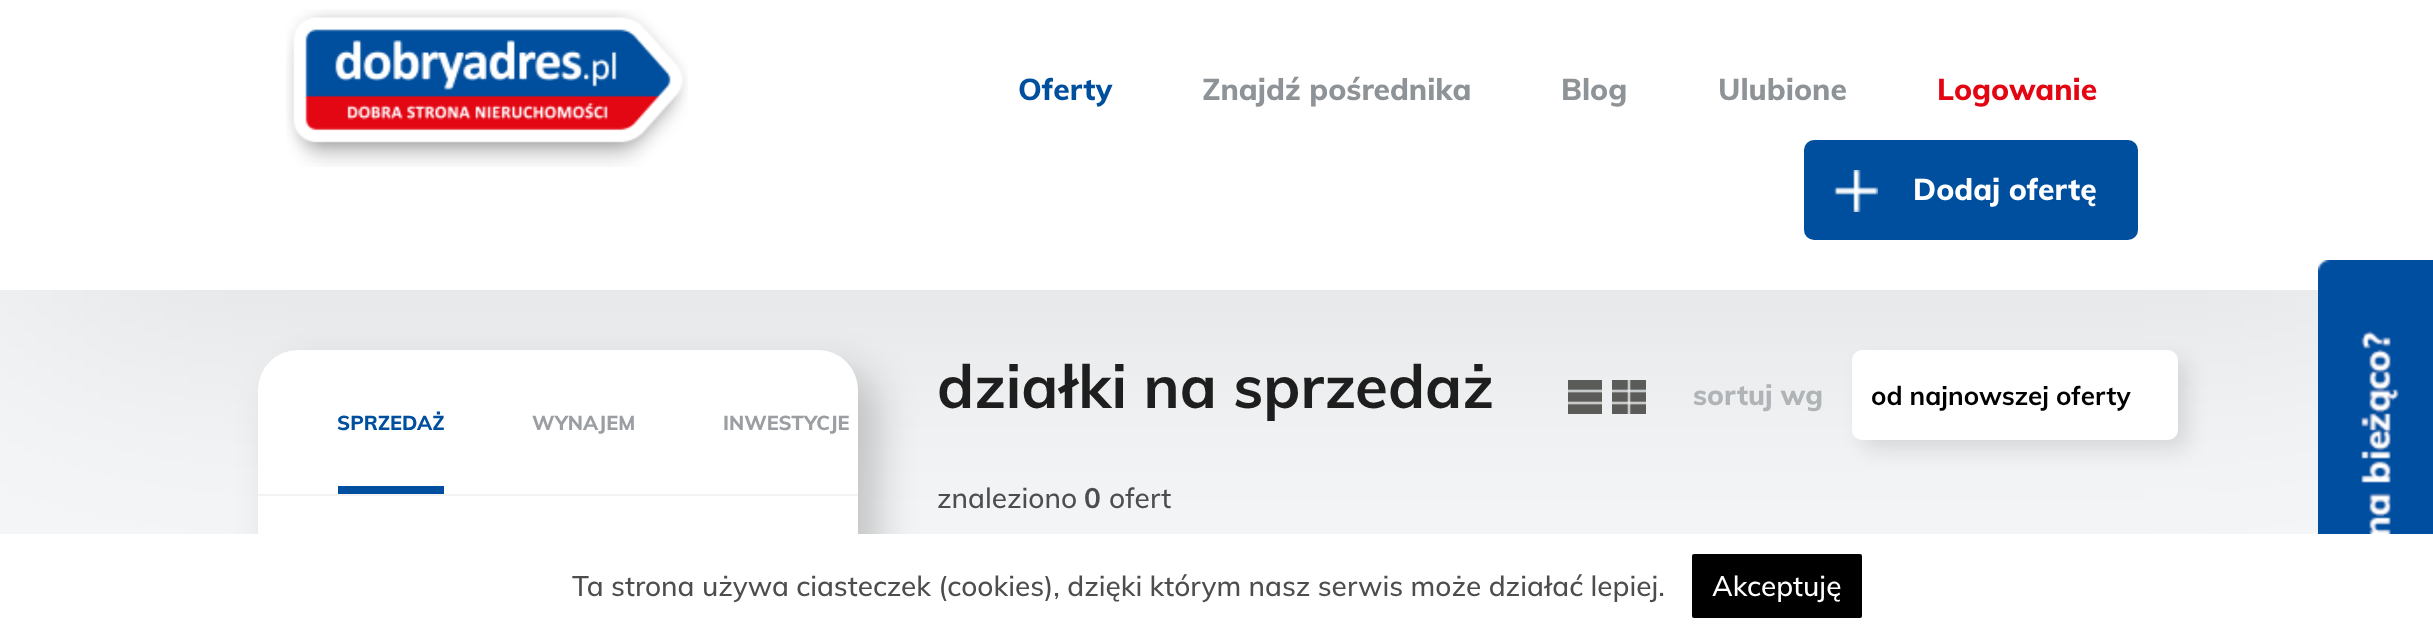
<svg xmlns="http://www.w3.org/2000/svg" width="2433" height="637" viewBox="0 0 2433 637">
  <defs>
    <filter id="blur1" x="-50%" y="-200%" width="200%" height="500%"><feGaussianBlur stdDeviation="150"/></filter>
    <filter id="blur2" x="-50%" y="-200%" width="200%" height="500%"><feGaussianBlur stdDeviation="20"/></filter>
    <filter id="blur3" x="-50%" y="-200%" width="200%" height="500%"><feGaussianBlur stdDeviation="10"/></filter>
  </defs>
  <rect width="100%" height="100%" fill="#f4f6f7"/>
  <rect x="0" y="20" width="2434" height="290" fill="#000000" fill-opacity="0.1" filter="url(#blur1)"/>
  <rect x="0" y="0" width="2433" height="290" fill="#ffffff"/>
  <image x="286" y="9" width="402" height="158" href="img1.png"/>
  <text x="1018" y="100" font-family="Muli" font-size="30" font-weight="800" fill="#004f9e">Oferty</text>
  <text x="1202" y="100" font-family="Muli" font-size="30" font-weight="800" fill="#8e9397">Znajdź pośrednika</text>
  <text x="1561" y="100" font-family="Muli" font-size="30" font-weight="800" fill="#8e9397">Blog</text>
  <text x="1718" y="100" font-family="Muli" font-size="30" font-weight="800" fill="#8e9397">Ulubione</text>
  <text x="1937" y="100" font-family="Muli" font-size="30" font-weight="800" fill="#e30512">Logowanie</text>
  <rect x="1804" y="140" width="334" height="100" rx="10" fill="#004f9e"/>
  <image x="1834" y="170" width="44" height="42" href="img2.png"/>
  <text x="1913" y="200" font-family="Muli" font-size="30" font-weight="800" fill="#ffffff">Dodaj ofertę</text>
  <rect x="278" y="370" width="600" height="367" rx="40" fill="#000000" fill-opacity="0.2" filter="url(#blur2)"/>
  <rect x="258" y="350" width="600" height="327" rx="40" fill="#ffffff"/>
  <rect x="258" y="494" width="600" height="2" fill="#f3f3f3"/>
  <rect x="338" y="486" width="106" height="8" fill="#004f9f"/>
  <text x="337" y="430" font-family="Muli" font-size="20" font-weight="800" fill="#004f9e">SPRZEDAŻ</text>
  <text x="532" y="430" font-family="Muli" font-size="20" font-weight="800" fill="#9b9fa3">WYNAJEM</text>
  <text x="723" y="430" font-family="Muli" font-size="20" font-weight="800" fill="#9b9fa3">INWESTYCJE</text>
  <text x="937" y="408" font-family="Muli" font-size="60" font-weight="bold" fill="#1e1e1e">działki na sprzedaż</text>
  <image x="1568" y="380" width="34" height="34" href="img3.png"/>
  <image x="1612" y="380" width="34" height="34" href="img4.png"/>
  <text x="1693" y="405" font-family="Muli" font-size="28" font-weight="800" fill="#b0b4b6">sortuj wg</text>
  <rect x="1862" y="360" width="326" height="90" rx="10" fill="#000000" fill-opacity="0.1" filter="url(#blur3)"/>
  <rect x="1852" y="350" width="326" height="90" rx="10" fill="#ffffff"/>
  <text x="1871" y="405" font-family="Muli" font-size="26" font-weight="bold" fill="#000000">od najnowszej oferty</text>
  <text x="937" y="508" font-family="Muli" font-size="28" font-weight="500" fill="#4d4d4d">znaleziono</text>
  <text x="1084" y="508" font-family="Muli" font-size="28" font-weight="bold" fill="#4d4d4d">0</text>
  <text x="1109" y="508" font-family="Muli" font-size="28" font-weight="500" fill="#4d4d4d">ofert</text>
  <image x="2318" y="260" width="115" height="274" href="img5.png"/>
  <rect x="0" y="534" width="2433" height="103" fill="#ffffff"/>
  <text x="572" y="596" font-family="Muli" font-size="28" font-weight="500" fill="#4d4d4d">Ta strona używa ciasteczek (cookies), dzięki którym nasz serwis może działać lepiej.</text>
  <rect x="1692" y="554" width="170" height="64" rx="2" fill="#000000"/>
  <text x="1712" y="596" font-family="Muli" font-size="28" font-weight="500" fill="#ffffff">Akceptuję</text>
</svg>
